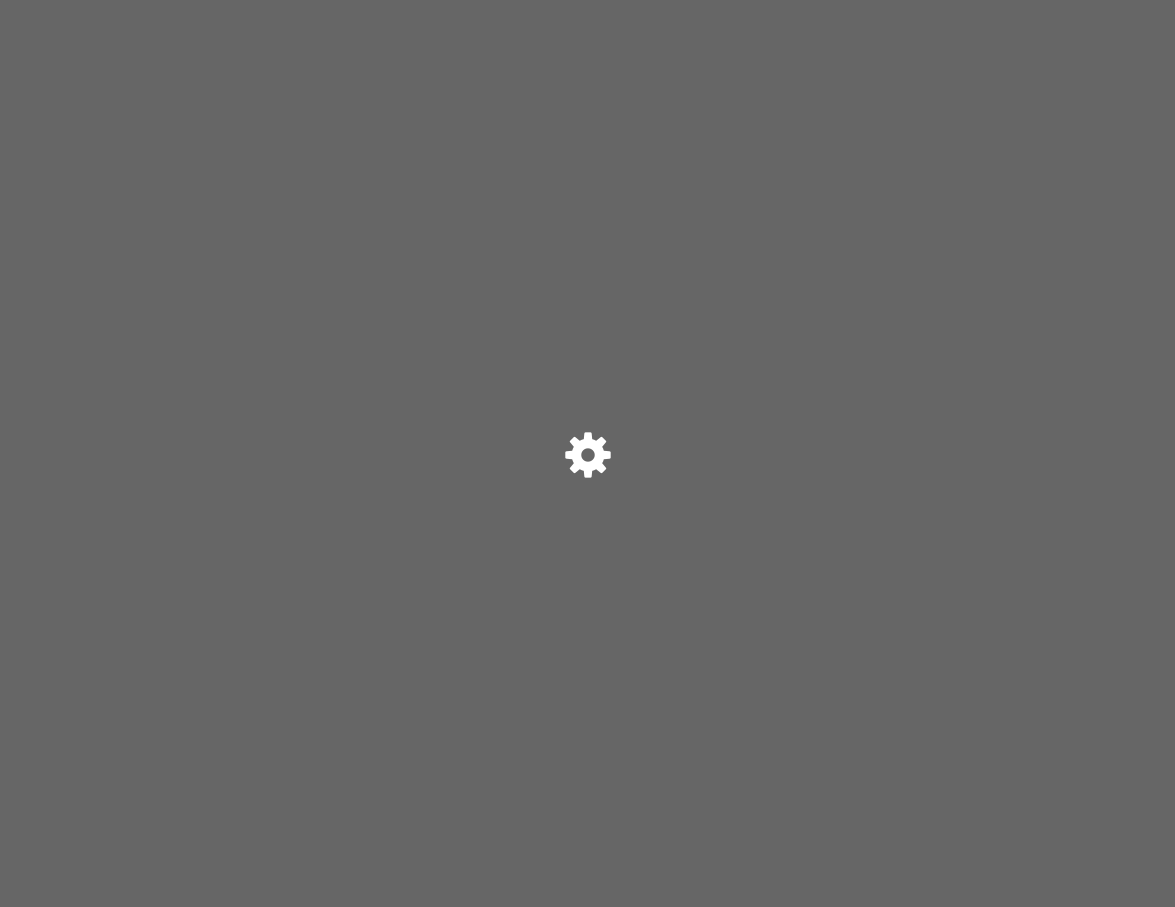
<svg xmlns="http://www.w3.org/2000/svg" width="1175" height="907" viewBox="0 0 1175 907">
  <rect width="100%" height="100%" fill="#666666"/>
  <image x="565" y="432" width="46" height="46" href="img1.png"/>
</svg>
